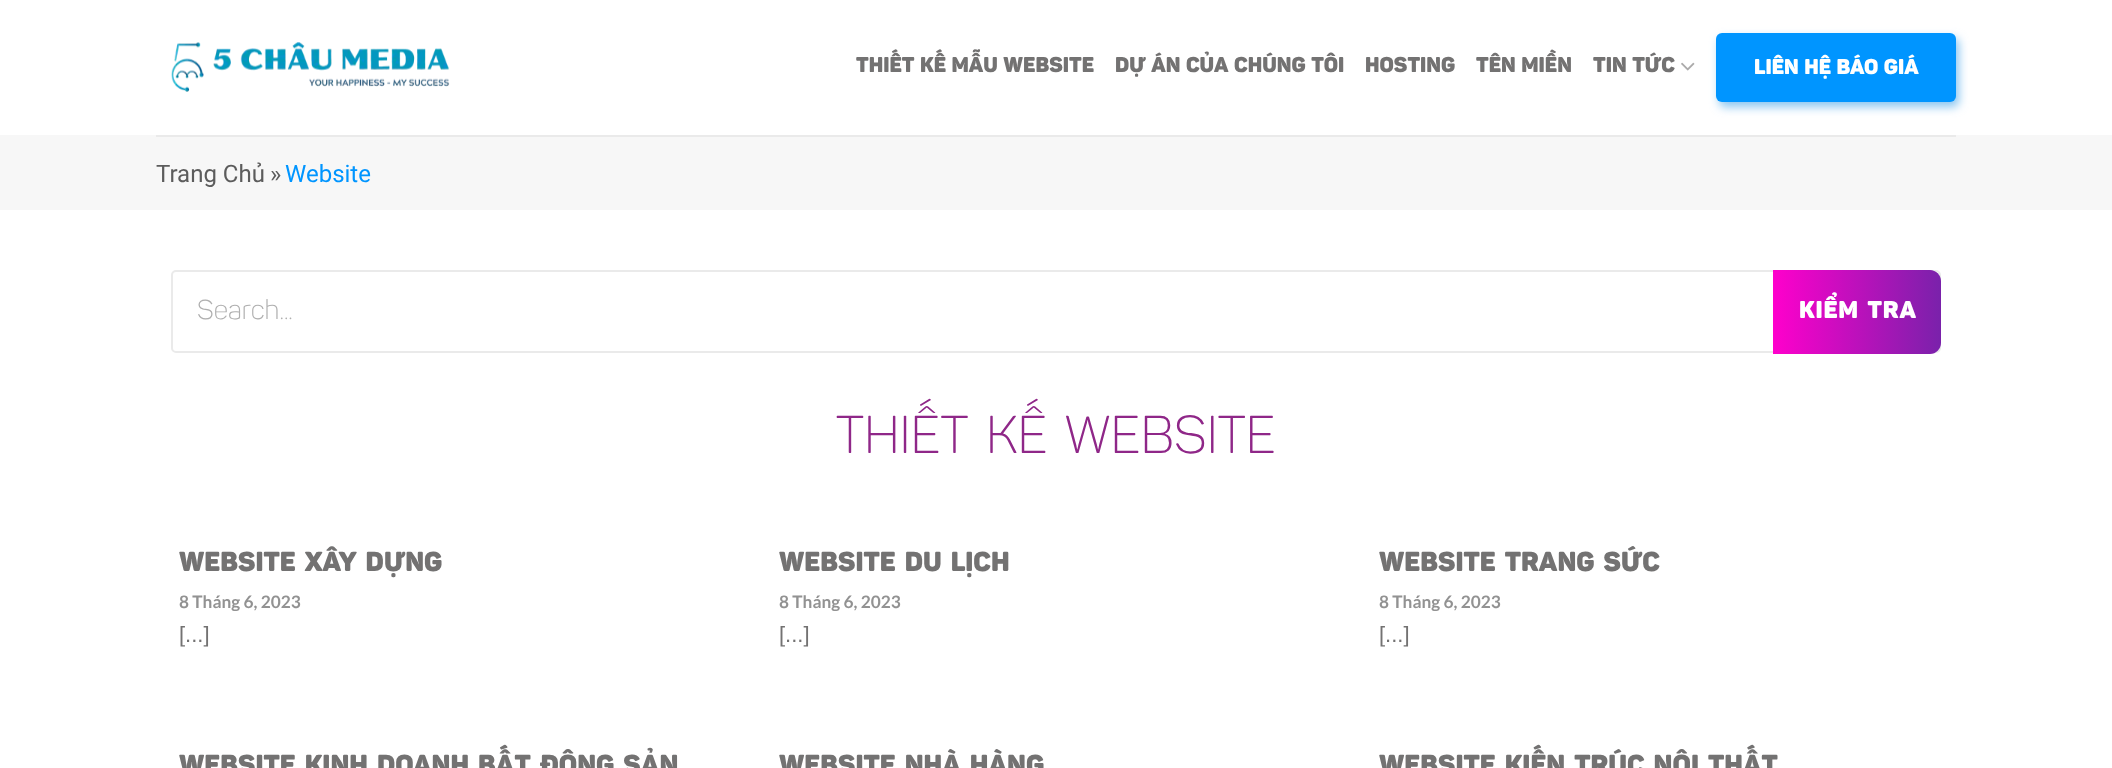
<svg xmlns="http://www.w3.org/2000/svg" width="2112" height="768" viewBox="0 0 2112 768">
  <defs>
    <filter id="blur1" x="-50%" y="-200%" width="200%" height="500%"><feGaussianBlur stdDeviation="5"/></filter>
    <linearGradient id="g1" gradientUnits="userSpaceOnUse" x1="1773" y1="312" x2="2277" y2="312"><stop offset="0" stop-color="#ff00cc"/><stop offset="0.51" stop-color="#333399"/><stop offset="1" stop-color="#ff00cc"/></linearGradient>
  </defs>
  <rect width="100%" height="100%" fill="#ffffff"/>
  <image x="171" y="42" width="279" height="50" href="img1.png"/>
  <text x="856" y="72" word-spacing="-1.5" font-family="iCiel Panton" font-size="21" font-weight="900" fill="#737272">THIẾT KẾ MẪU WEBSITE</text>
  <text x="1115" y="72" word-spacing="-1.5" font-family="iCiel Panton" font-size="21" font-weight="900" fill="#737272">DỰ ÁN CỦA CHÚNG TÔI</text>
  <text x="1365" y="72" font-family="iCiel Panton" font-size="21" font-weight="900" fill="#737272">HOSTING</text>
  <text x="1476" y="72" word-spacing="-1.5" font-family="iCiel Panton" font-size="21" font-weight="900" fill="#737272">TÊN MIỀN</text>
  <text x="1593" y="72" word-spacing="-1.5" font-family="iCiel Panton" font-size="21" font-weight="900" fill="#737272">TIN TỨC</text>
  <image x="1681" y="62" width="14" height="9" href="img2.png"/>
  <rect x="1719" y="38" width="240" height="69" rx="6" fill="#8ac6f1" filter="url(#blur1)"/>
  <rect x="1716" y="33" width="240" height="69" rx="6" fill="#0095ff"/>
  <text x="1754" y="74" word-spacing="-1.5" font-family="iCiel Panton" font-size="21" font-weight="900" fill="#ffffff">LIÊN HỆ BÁO GIÁ</text>
  <rect x="0" y="135" width="2112" height="75" fill="#f7f7f7"/>
  <rect x="156" y="135" width="1800" height="2" fill="#eaeaea"/>
  <text x="156" y="182" font-family="Roboto" font-size="24" fill="#5c5c5c">Trang Chủ</text>
  <text x="270" y="182" font-family="Roboto" font-size="24" fill="#5c5c5c">»</text>
  <text x="285" y="182" font-family="Roboto" font-size="24" fill="#0095ff">Website</text>
  <rect x="172" y="271" width="1768" height="81" rx="4" fill="none" stroke="#eaeaea" stroke-width="2"/>
  <text x="197" y="319" font-family="iCiel Panton" font-size="27" font-weight="300" fill="#afafaf">Search...</text>
  <path d="M1773 270H1930C1936 270 1941 275 1941 281V343C1941 349 1936 354 1930 354H1773Z" fill="url(#g1)"/>
  <text x="1799" y="318" font-family="iCiel Panton" font-size="24" font-weight="900" letter-spacing="0.75" fill="#ffffff">KIỂM TRA</text>
  <text x="836" y="453" font-family="iCiel Panton" font-size="52.5" font-weight="300" fill="#8f2788">THIẾT KẾ WEBSITE</text>
  <text x="179" y="571" font-family="iCiel Panton" font-size="27" font-weight="900" fill="#737272">WEBSITE XÂY DỰNG</text>
  <text x="179" y="608" font-family="Lato" font-size="17.25" font-weight="bold" fill="#929292">8 Tháng 6, 2023</text>
  <text x="179" y="642" font-family="Liberation Sans" font-size="22" fill="#737272">[...]</text>
  <text x="779" y="571" font-family="iCiel Panton" font-size="27" font-weight="900" fill="#737272">WEBSITE DU LỊCH</text>
  <text x="779" y="608" font-family="Lato" font-size="17.25" font-weight="bold" fill="#929292">8 Tháng 6, 2023</text>
  <text x="779" y="642" font-family="Liberation Sans" font-size="22" fill="#737272">[...]</text>
  <text x="1379" y="571" font-family="iCiel Panton" font-size="27" font-weight="900" fill="#737272">WEBSITE TRANG SỨC</text>
  <text x="1379" y="608" font-family="Lato" font-size="17.25" font-weight="bold" fill="#929292">8 Tháng 6, 2023</text>
  <text x="1379" y="642" font-family="Liberation Sans" font-size="22" fill="#737272">[...]</text>
  <text x="179" y="774" font-family="iCiel Panton" font-size="27" font-weight="900" fill="#737272">WEBSITE KINH DOANH BẤT ĐỘNG SẢN</text>
  <text x="779" y="774" font-family="iCiel Panton" font-size="27" font-weight="900" fill="#737272">WEBSITE NHÀ HÀNG</text>
  <text x="1379" y="774" font-family="iCiel Panton" font-size="27" font-weight="900" fill="#737272">WEBSITE KIẾN TRÚC NỘI THẤT</text>
</svg>
